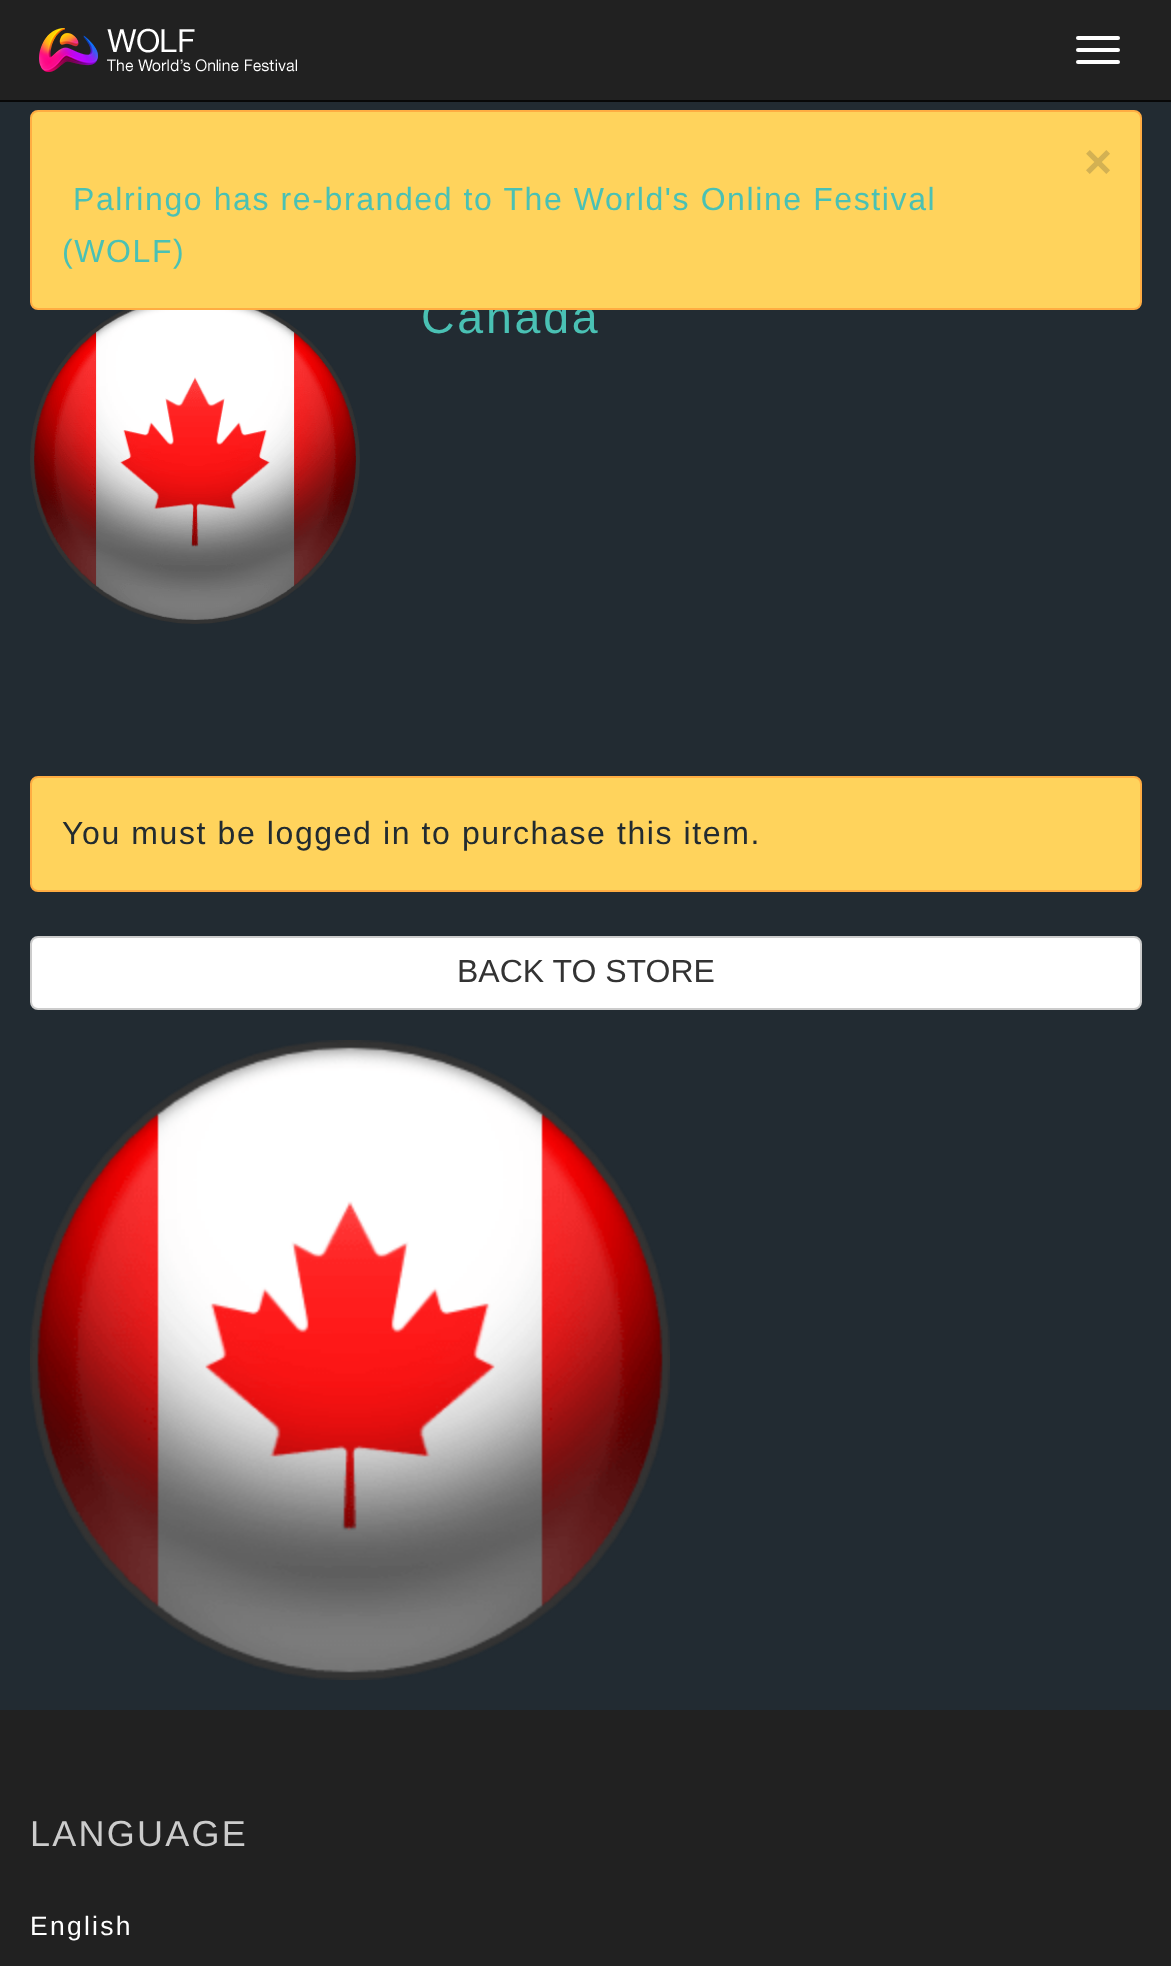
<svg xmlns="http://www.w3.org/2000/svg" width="1171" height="1966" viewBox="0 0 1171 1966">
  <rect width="100%" height="100%" fill="#212121"/>
  <rect x="0" y="100" width="1171" height="2" fill="#080808"/>
  <image x="39" y="28" width="258" height="44" href="img1.png"/>
  <rect x="1076" y="36" width="44" height="4" rx="2" fill="#ffffff"/>
  <rect x="1076" y="48" width="44" height="4" rx="2" fill="#ffffff"/>
  <rect x="1076" y="60" width="44" height="4" rx="2" fill="#ffffff"/>
  <rect x="0" y="102" width="1171" height="1608" fill="#222b32"/>
  <text x="421" y="333" font-family="Liberation Sans" font-size="46.5" letter-spacing="2.75" fill="#4ac1b4">Canada</text>
  <rect x="31" y="111" width="1110" height="198" rx="7" fill="#ffd35c" stroke="#ffad42" stroke-width="2"/>
  <text x="1084" y="178" font-family="Liberation Sans" font-size="48" font-weight="bold" fill="#d3b153">×</text>
  <text x="73" y="210" font-family="Liberation Sans" font-size="32" letter-spacing="1.6" fill="#4ac1b4">Palringo has re-branded to The World's Online Festival</text>
  <text x="62" y="262" font-family="Liberation Sans" font-size="32" letter-spacing="1.6" fill="#4ac1b4">(WOLF)</text>
  <image x="30" y="310" width="330" height="314" href="img2.png"/>
  <rect x="31" y="777" width="1110" height="114" rx="7" fill="#ffd35c" stroke="#ffad42" stroke-width="2"/>
  <text x="62" y="844" font-family="Liberation Sans" font-size="32" letter-spacing="1.6" fill="#222b30">You must be logged in to purchase this item.</text>
  <rect x="31" y="937" width="1110" height="72" rx="7" fill="#ffffff" stroke="#cccccc" stroke-width="2"/>
  <text x="457" y="982" font-family="Liberation Sans" font-size="32" fill="#333333">BACK TO STORE</text>
  <image x="30" y="1040" width="640" height="640" href="img3.png"/>
  <text x="30" y="1846" font-family="Liberation Sans" font-size="36" letter-spacing="2.25" fill="#cccccc">LANGUAGE</text>
  <text x="30" y="1935" font-family="Liberation Sans" font-size="26.5" letter-spacing="2.25" fill="#ffffff">English</text>
</svg>
